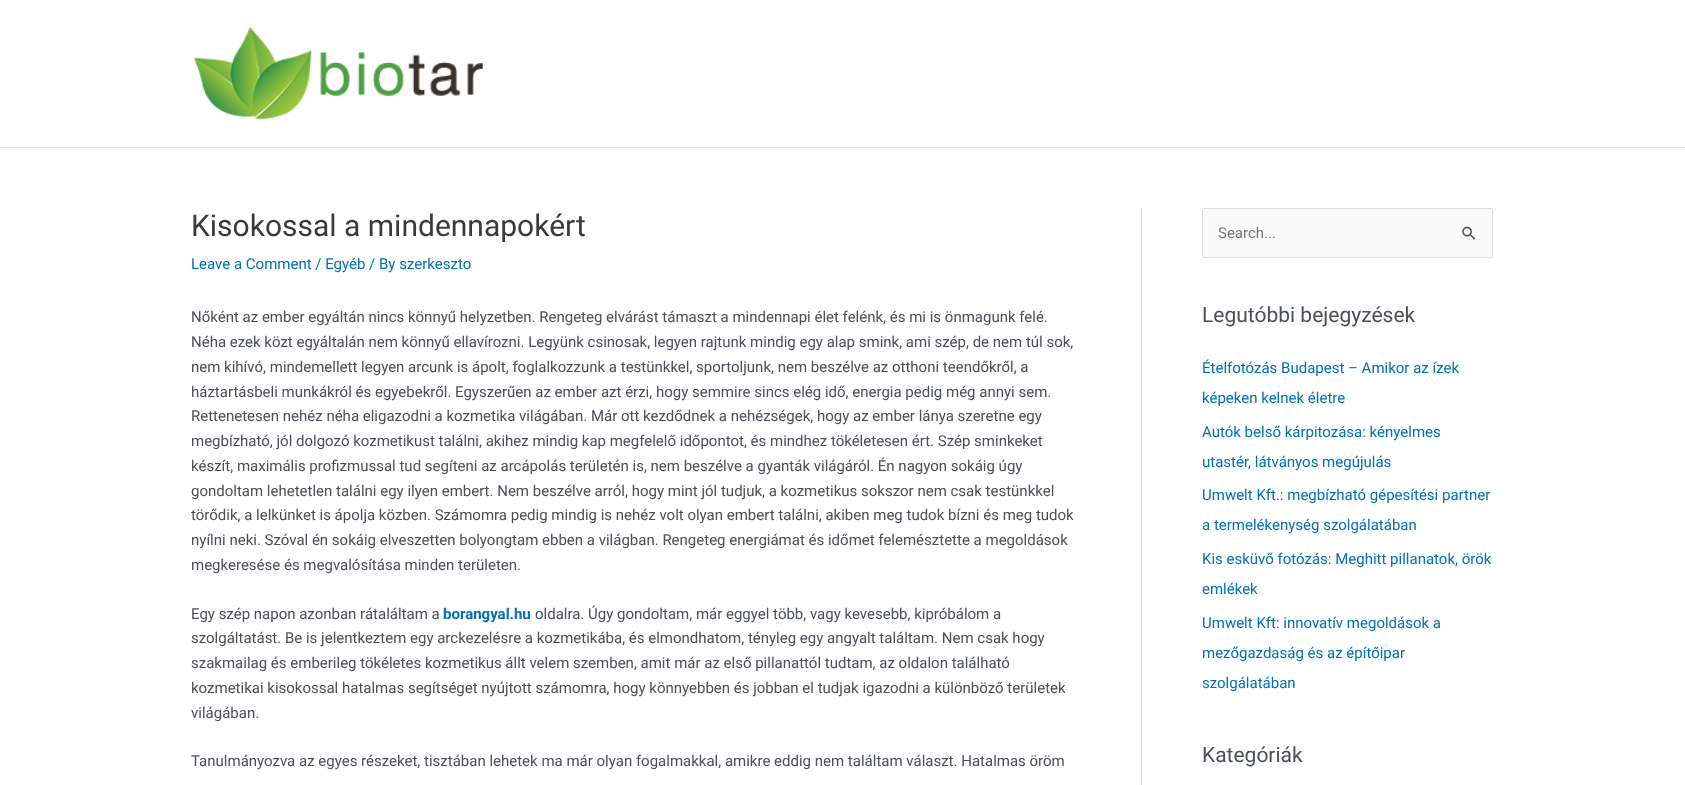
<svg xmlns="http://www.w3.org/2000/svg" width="1685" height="785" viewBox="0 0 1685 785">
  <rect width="100%" height="100%" fill="#ffffff"/>
  <rect x="0" y="147" width="1685" height="1" fill="#dddddd"/>
  <image x="194" y="26" width="289" height="94" href="img1.png"/>
  <rect x="1141" y="208" width="1" height="577" fill="#dddddd"/>
  <text x="191" y="236" font-family="Roboto" font-size="30" fill="#3a3a3a">Kisokossal a mindennapokért</text>
  <text x="191" y="269" font-family="Roboto" font-size="15" fill="#0170b9">Leave a Comment / Egyéb / By szerkeszto</text>
  <text x="191" y="322" font-family="Roboto" font-size="15" fill="#4b4f58">Nőként az ember egyáltán nincs könnyű helyzetben. Rengeteg elvárást támaszt a mindennapi élet felénk, és mi is önmagunk felé.</text>
  <text x="191" y="347" font-family="Roboto" font-size="15" fill="#4b4f58">Néha ezek közt egyáltalán nem könnyű ellavírozni. Legyünk csinosak, legyen rajtunk mindig egy alap smink, ami szép, de nem túl sok,</text>
  <text x="191" y="372" font-family="Roboto" font-size="15" fill="#4b4f58">nem kihívó, mindemellett legyen arcunk is ápolt, foglalkozzunk a testünkkel, sportoljunk, nem beszélve az otthoni teendőkről, a</text>
  <text x="191" y="397" font-family="Roboto" font-size="15" fill="#4b4f58">háztartásbeli munkákról és egyebekről. Egyszerűen az ember azt érzi, hogy semmire sincs elég idő, energia pedig még annyi sem.</text>
  <text x="191" y="421" font-family="Roboto" font-size="15" fill="#4b4f58">Rettenetesen nehéz néha eligazodni a kozmetika világában. Már ott kezdődnek a nehézségek, hogy az ember lánya szeretne egy</text>
  <text x="191" y="446" font-family="Roboto" font-size="15" fill="#4b4f58">megbízható, jól dolgozó kozmetikust találni, akihez mindig kap megfelelő időpontot, és mindhez tökéletesen ért. Szép sminkeket</text>
  <text x="191" y="471" font-family="Roboto" font-size="15" fill="#4b4f58">készít, maximális profizmussal tud segíteni az arcápolás területén is, nem beszélve a gyanták világáról. Én nagyon sokáig úgy</text>
  <text x="191" y="496" font-family="Roboto" font-size="15" fill="#4b4f58">gondoltam lehetetlen találni egy ilyen embert. Nem beszélve arról, hogy mint jól tudjuk, a kozmetikus sokszor nem csak testünkkel</text>
  <text x="191" y="520" font-family="Roboto" font-size="15" fill="#4b4f58">törődik, a lelkünket is ápolja közben. Számomra pedig mindig is nehéz volt olyan embert találni, akiben meg tudok bízni és meg tudok</text>
  <text x="191" y="545" font-family="Roboto" font-size="15" fill="#4b4f58">nyílni neki. Szóval én sokáig elveszetten bolyongtam ebben a világban. Rengeteg energiámat és időmet felemésztette a megoldások</text>
  <text x="191" y="570" font-family="Roboto" font-size="15" fill="#4b4f58">megkeresése és megvalósítása minden területen.</text>
  <text x="191" y="619" font-family="Roboto" font-size="15" fill="#4b4f58">Egy szép napon azonban rátaláltam a</text>
  <text x="443" y="619" font-family="Roboto" font-size="15" font-weight="bold" fill="#0170b9">borangyal.hu</text>
  <text x="535" y="619" font-family="Roboto" font-size="15" fill="#4b4f58">oldalra. Úgy gondoltam, már eggyel több, vagy kevesebb, kipróbálom a</text>
  <text x="191" y="643" font-family="Roboto" font-size="15" fill="#4b4f58">szolgáltatást. Be is jelentkeztem egy arckezelésre a kozmetikába, és elmondhatom, tényleg egy angyalt találtam. Nem csak hogy</text>
  <text x="191" y="668" font-family="Roboto" font-size="15" fill="#4b4f58">szakmailag és emberileg tökéletes kozmetikus állt velem szemben, amit már az első pillanattól tudtam, az oldalon található</text>
  <text x="191" y="693" font-family="Roboto" font-size="15" fill="#4b4f58">kozmetikai kisokossal hatalmas segítséget nyújtott számomra, hogy könnyebben és jobban el tudjak igazodni a különböző területek</text>
  <text x="191" y="718" font-family="Roboto" font-size="15" fill="#4b4f58">világában.</text>
  <text x="191" y="766" font-family="Roboto" font-size="15" fill="#4b4f58">Tanulmányozva az egyes részeket, tisztában lehetek ma már olyan fogalmakkal, amikre eddig nem találtam választ. Hatalmas öröm</text>
  <rect x="1202.5" y="208.5" width="290" height="49" rx="1.5" fill="#fafafa" stroke="#dddddd"/>
  <text x="1218" y="238" font-family="Roboto" font-size="15" fill="#757575">Search...</text>
  <image x="1462" y="226" width="14" height="14" href="img2.png"/>
  <text x="1202" y="322" font-family="Roboto" font-size="21" fill="#4b4f58">Legutóbbi bejegyzések</text>
  <text x="1202" y="373" font-family="Roboto" font-size="15" fill="#0170b9">Ételfotózás Budapest – Amikor az ízek</text>
  <text x="1202" y="403" font-family="Roboto" font-size="15" fill="#0170b9">képeken kelnek életre</text>
  <text x="1202" y="437" font-family="Roboto" font-size="15" fill="#0170b9">Autók belső kárpitozása: kényelmes</text>
  <text x="1202" y="467" font-family="Roboto" font-size="15" fill="#0170b9">utastér, látványos megújulás</text>
  <text x="1202" y="500" font-family="Roboto" font-size="15" fill="#0170b9">Umwelt Kft.: megbízható gépesítési partner</text>
  <text x="1202" y="530" font-family="Roboto" font-size="15" fill="#0170b9">a termelékenység szolgálatában</text>
  <text x="1202" y="564" font-family="Roboto" font-size="15" fill="#0170b9">Kis esküvő fotózás: Meghitt pillanatok, örök</text>
  <text x="1202" y="594" font-family="Roboto" font-size="15" fill="#0170b9">emlékek</text>
  <text x="1202" y="628" font-family="Roboto" font-size="15" fill="#0170b9">Umwelt Kft: innovatív megoldások a</text>
  <text x="1202" y="658" font-family="Roboto" font-size="15" fill="#0170b9">mezőgazdaság és az építőipar</text>
  <text x="1202" y="688" font-family="Roboto" font-size="15" fill="#0170b9">szolgálatában</text>
  <text x="1202" y="762" font-family="Roboto" font-size="21" fill="#4b4f58">Kategóriák</text>
</svg>
